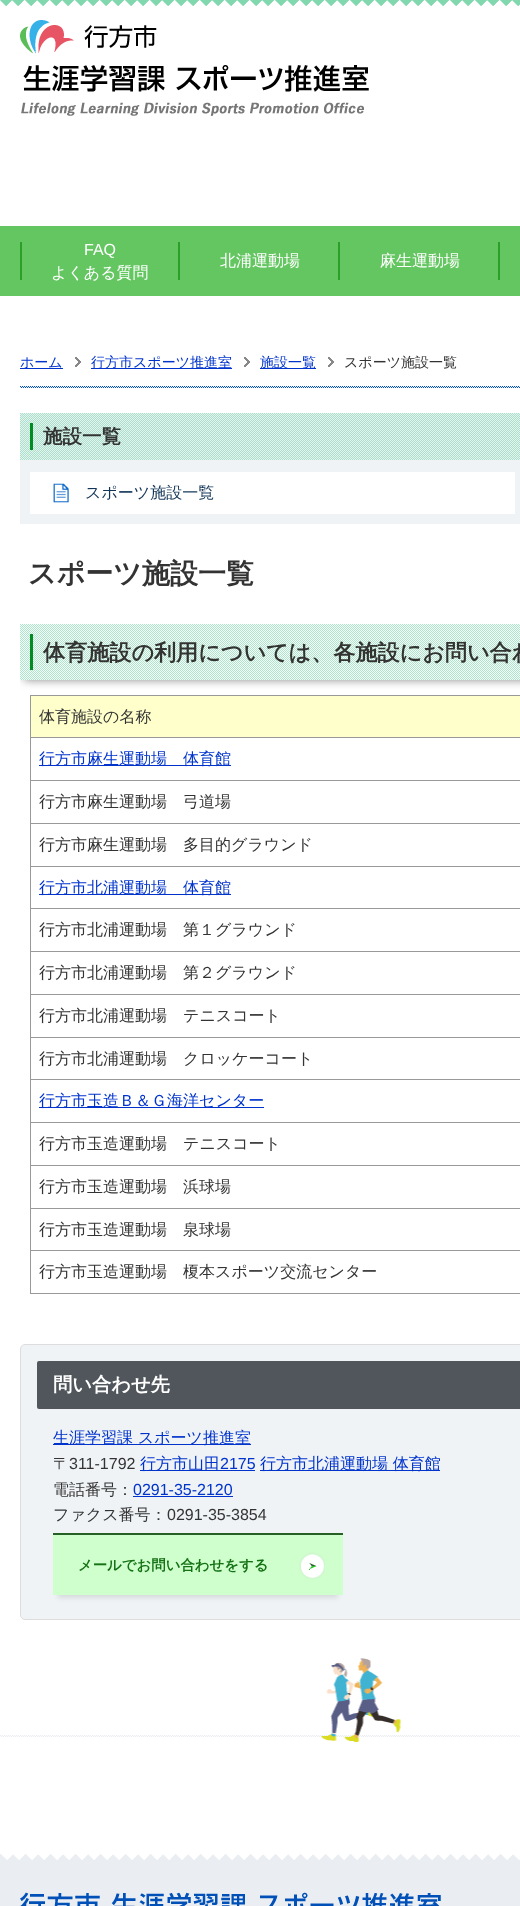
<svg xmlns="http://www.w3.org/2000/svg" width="520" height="1906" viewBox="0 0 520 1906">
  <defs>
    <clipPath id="clip1"><rect x="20" y="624" width="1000" height="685"/></clipPath>
    <clipPath id="clip2"><rect x="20" y="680" width="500" height="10"/></clipPath>
    <filter id="blur1" x="-50%" y="-200%" width="200%" height="500%"><feGaussianBlur stdDeviation="5"/></filter>
    <filter id="blur2" x="-50%" y="-200%" width="200%" height="500%"><feGaussianBlur stdDeviation="2.5"/></filter>
  </defs>
  <rect width="100%" height="100%" fill="#ffffff"/>
  <image x="0" y="0" width="520" height="6" href="img1.png"/>
  <image x="20" y="20" width="349" height="96" href="img2.png"/>
  <rect x="0" y="226" width="520" height="70" fill="#64c661"/>
  <image x="20" y="242" width="160" height="38" href="img3.png"/>
  <text x="84" y="255" font-family="Liberation Sans" font-size="16" fill="#ffffff">FAQ</text>
  <text x="51" y="278" font-family="WenQuanYi Zen Hei" font-size="16" font-weight="500" fill="#ffffff">よくある質問</text>
  <rect x="338" y="242" width="2" height="38" fill="#2c9f29"/>
  <text x="220" y="266" font-family="WenQuanYi Zen Hei" font-size="16" font-weight="500" fill="#ffffff">北浦運動場</text>
  <rect x="498" y="242" width="2" height="38" fill="#2c9f29"/>
  <text x="380" y="266" font-family="WenQuanYi Zen Hei" font-size="16" font-weight="500" fill="#ffffff">麻生運動場</text>
  <image x="20" y="386" width="500" height="2" href="img4.png"/>
  <image x="75" y="357" width="6" height="10" href="img5.png"/>
  <rect x="20" y="368" width="43" height="1" fill="#0033cc"/>
  <text x="20" y="367" font-family="WenQuanYi Zen Hei" font-size="14" font-weight="500" fill="#0033cc">ホーム</text>
  <image x="244" y="357" width="6" height="10" href="img5.png"/>
  <rect x="91" y="368" width="141" height="1" fill="#0033cc"/>
  <text x="91" y="367" font-family="WenQuanYi Zen Hei" font-size="14" font-weight="500" fill="#0033cc">行方市スポーツ推進室</text>
  <image x="328" y="357" width="6" height="10" href="img5.png"/>
  <rect x="260" y="368" width="56" height="1" fill="#0033cc"/>
  <text x="260" y="367" font-family="WenQuanYi Zen Hei" font-size="14" font-weight="500" fill="#0033cc">施設一覧</text>
  <text x="344" y="367" font-family="WenQuanYi Zen Hei" font-size="14" font-weight="500" fill="#333333">スポーツ施設一覧</text>
  <rect x="20" y="413" width="500" height="111" fill="#eff3f6"/>
  <image x="20" y="413" width="500" height="47" href="img6.png"/>
  <text x="43" y="443" font-family="WenQuanYi Zen Hei" font-size="19.5" font-weight="bold" fill="#333333">施設一覧</text>
  <rect x="30" y="472" width="485" height="42" fill="#ffffff"/>
  <image x="53" y="483" width="16" height="20" href="img7.png"/>
  <text x="85" y="498" font-family="WenQuanYi Zen Hei" font-size="16" font-weight="500" fill="#123456">スポーツ施設一覧</text>
  <text x="28" y="583" font-family="WenQuanYi Zen Hei" font-size="28" font-weight="bold" fill="#333333">スポーツ施設一覧</text>
  <rect x="30" y="695" width="490" height="1" fill="#999999"/>
  <g clip-path="url(#clip1)">
    <g clip-path="url(#clip2)">
      <rect x="24" y="632" width="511" height="48" fill="#888888" filter="url(#blur1)"/>
    </g>
  </g>
  <image x="20" y="624" width="500" height="56" href="img8.png"/>
  <text x="43" y="660" font-family="WenQuanYi Zen Hei" font-size="22.1" font-weight="bold" fill="#333333">体育施設の利用については、各施設にお問い合わ</text>
  <rect x="30" y="696" width="1" height="597" fill="#999999"/>
  <rect x="31" y="696" width="489" height="41" fill="#ffffcc"/>
  <text x="39" y="722" font-family="WenQuanYi Zen Hei" font-size="16" font-weight="500" fill="#333333">体育施設の名称</text>
  <rect x="30" y="737" width="490" height="1" fill="#999999"/>
  <rect x="39" y="765" width="192" height="1" fill="#0033cc"/>
  <text x="39" y="764" font-family="WenQuanYi Zen Hei" font-size="16" font-weight="500" fill="#0033cc">行方市麻生運動場　体育館</text>
  <rect x="30" y="780" width="490" height="1" fill="#999999"/>
  <text x="39" y="807" font-family="WenQuanYi Zen Hei" font-size="16" font-weight="500" fill="#333333">行方市麻生運動場　弓道場</text>
  <rect x="30" y="823" width="490" height="1" fill="#999999"/>
  <text x="39" y="850" font-family="WenQuanYi Zen Hei" font-size="16" font-weight="500" fill="#333333">行方市麻生運動場　多目的グラウンド</text>
  <rect x="30" y="866" width="490" height="1" fill="#999999"/>
  <rect x="39" y="894" width="192" height="1" fill="#0033cc"/>
  <text x="39" y="893" font-family="WenQuanYi Zen Hei" font-size="16" font-weight="500" fill="#0033cc">行方市北浦運動場　体育館</text>
  <rect x="30" y="908" width="490" height="1" fill="#999999"/>
  <text x="39" y="935" font-family="WenQuanYi Zen Hei" font-size="16" font-weight="500" fill="#333333">行方市北浦運動場　第１グラウンド</text>
  <rect x="30" y="951" width="490" height="1" fill="#999999"/>
  <text x="39" y="978" font-family="WenQuanYi Zen Hei" font-size="16" font-weight="500" fill="#333333">行方市北浦運動場　第２グラウンド</text>
  <rect x="30" y="994" width="490" height="1" fill="#999999"/>
  <text x="39" y="1021" font-family="WenQuanYi Zen Hei" font-size="16" font-weight="500" fill="#333333">行方市北浦運動場　テニスコート</text>
  <rect x="30" y="1037" width="490" height="1" fill="#999999"/>
  <text x="39" y="1064" font-family="WenQuanYi Zen Hei" font-size="16" font-weight="500" fill="#333333">行方市北浦運動場　クロッケーコート</text>
  <rect x="30" y="1079" width="490" height="1" fill="#999999"/>
  <rect x="39" y="1107" width="225" height="1" fill="#0033cc"/>
  <text x="39" y="1106" font-family="WenQuanYi Zen Hei" font-size="16" font-weight="500" fill="#0033cc">行方市玉造Ｂ＆Ｇ海洋センター</text>
  <rect x="30" y="1122" width="490" height="1" fill="#999999"/>
  <text x="39" y="1149" font-family="WenQuanYi Zen Hei" font-size="16" font-weight="500" fill="#333333">行方市玉造運動場　テニスコート</text>
  <rect x="30" y="1165" width="490" height="1" fill="#999999"/>
  <text x="39" y="1192" font-family="WenQuanYi Zen Hei" font-size="16" font-weight="500" fill="#333333">行方市玉造運動場　浜球場</text>
  <rect x="30" y="1208" width="490" height="1" fill="#999999"/>
  <text x="39" y="1235" font-family="WenQuanYi Zen Hei" font-size="16" font-weight="500" fill="#333333">行方市玉造運動場　泉球場</text>
  <rect x="30" y="1250" width="490" height="1" fill="#999999"/>
  <rect x="30" y="1293" width="490" height="1" fill="#999999"/>
  <text x="39" y="1277" font-family="WenQuanYi Zen Hei" font-size="16" font-weight="500" fill="#333333">行方市玉造運動場　榎本スポーツ交流センター</text>
  <rect x="20.5" y="1344.5" width="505" height="275" rx="4.5" fill="#eff3f6" stroke="#dddddd"/>
  <rect x="37" y="1361" width="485" height="48" rx="2" fill="#50565b"/>
  <text x="53" y="1391" font-family="WenQuanYi Zen Hei" font-size="19.25" font-weight="bold" fill="#ffffff">問い合わせ先</text>
  <rect x="53" y="1444" width="198" height="1" fill="#0033cc"/>
  <text x="53" y="1443" font-family="WenQuanYi Zen Hei" font-size="16" font-weight="500" fill="#0033cc">生涯学習課 スポーツ推進室</text>
  <text x="53" y="1469" font-family="WenQuanYi Zen Hei" font-size="16" font-weight="500" fill="#333333">〒</text>
  <text x="69" y="1469" font-family="Liberation Sans" font-size="16" fill="#333333">311-1792</text>
  <rect x="140" y="1470" width="115" height="1" fill="#0033cc"/>
  <text x="140" y="1469" font-family="WenQuanYi Zen Hei" font-size="16" font-weight="500" fill="#0033cc">行方市山田</text>
  <text x="220" y="1469" font-family="Liberation Sans" font-size="16" fill="#0033cc">2175</text>
  <rect x="260" y="1470" width="180" height="1" fill="#0033cc"/>
  <text x="260" y="1469" font-family="WenQuanYi Zen Hei" font-size="16" font-weight="500" fill="#0033cc">行方市北浦運動場 体育館</text>
  <text x="53" y="1495" font-family="WenQuanYi Zen Hei" font-size="16" font-weight="500" fill="#333333">電話番号：</text>
  <text x="133" y="1495" font-family="Liberation Sans" font-size="16" fill="#0033cc">0291-35-2120</text>
  <rect x="133" y="1496" width="100" height="1" fill="#0033cc"/>
  <text x="53" y="1520" font-family="WenQuanYi Zen Hei" font-size="16" font-weight="500" fill="#333333">ファクス番号：</text>
  <text x="167" y="1520" font-family="Liberation Sans" font-size="16" fill="#333333">0291-35-3854</text>
  <rect x="58" y="1546" width="280" height="52" fill="#000000" fill-opacity="0.1" filter="url(#blur2)"/>
  <rect x="53" y="1535" width="290" height="60" fill="#ceffcc"/>
  <image x="299" y="1552" width="26" height="27" href="img9.png"/>
  <rect x="53" y="1533" width="290" height="2" fill="#256024"/>
  <text x="78" y="1570" font-family="WenQuanYi Zen Hei" font-size="14.4" font-weight="bold" fill="#157214">メールでお問い合わせをする</text>
  <image x="0" y="1658" width="520" height="84" href="img10.png"/>
  <image x="0" y="1854" width="520" height="52" href="img11.png"/>
  <image x="20" y="1892" width="421" height="14" href="img12.png"/>
</svg>
